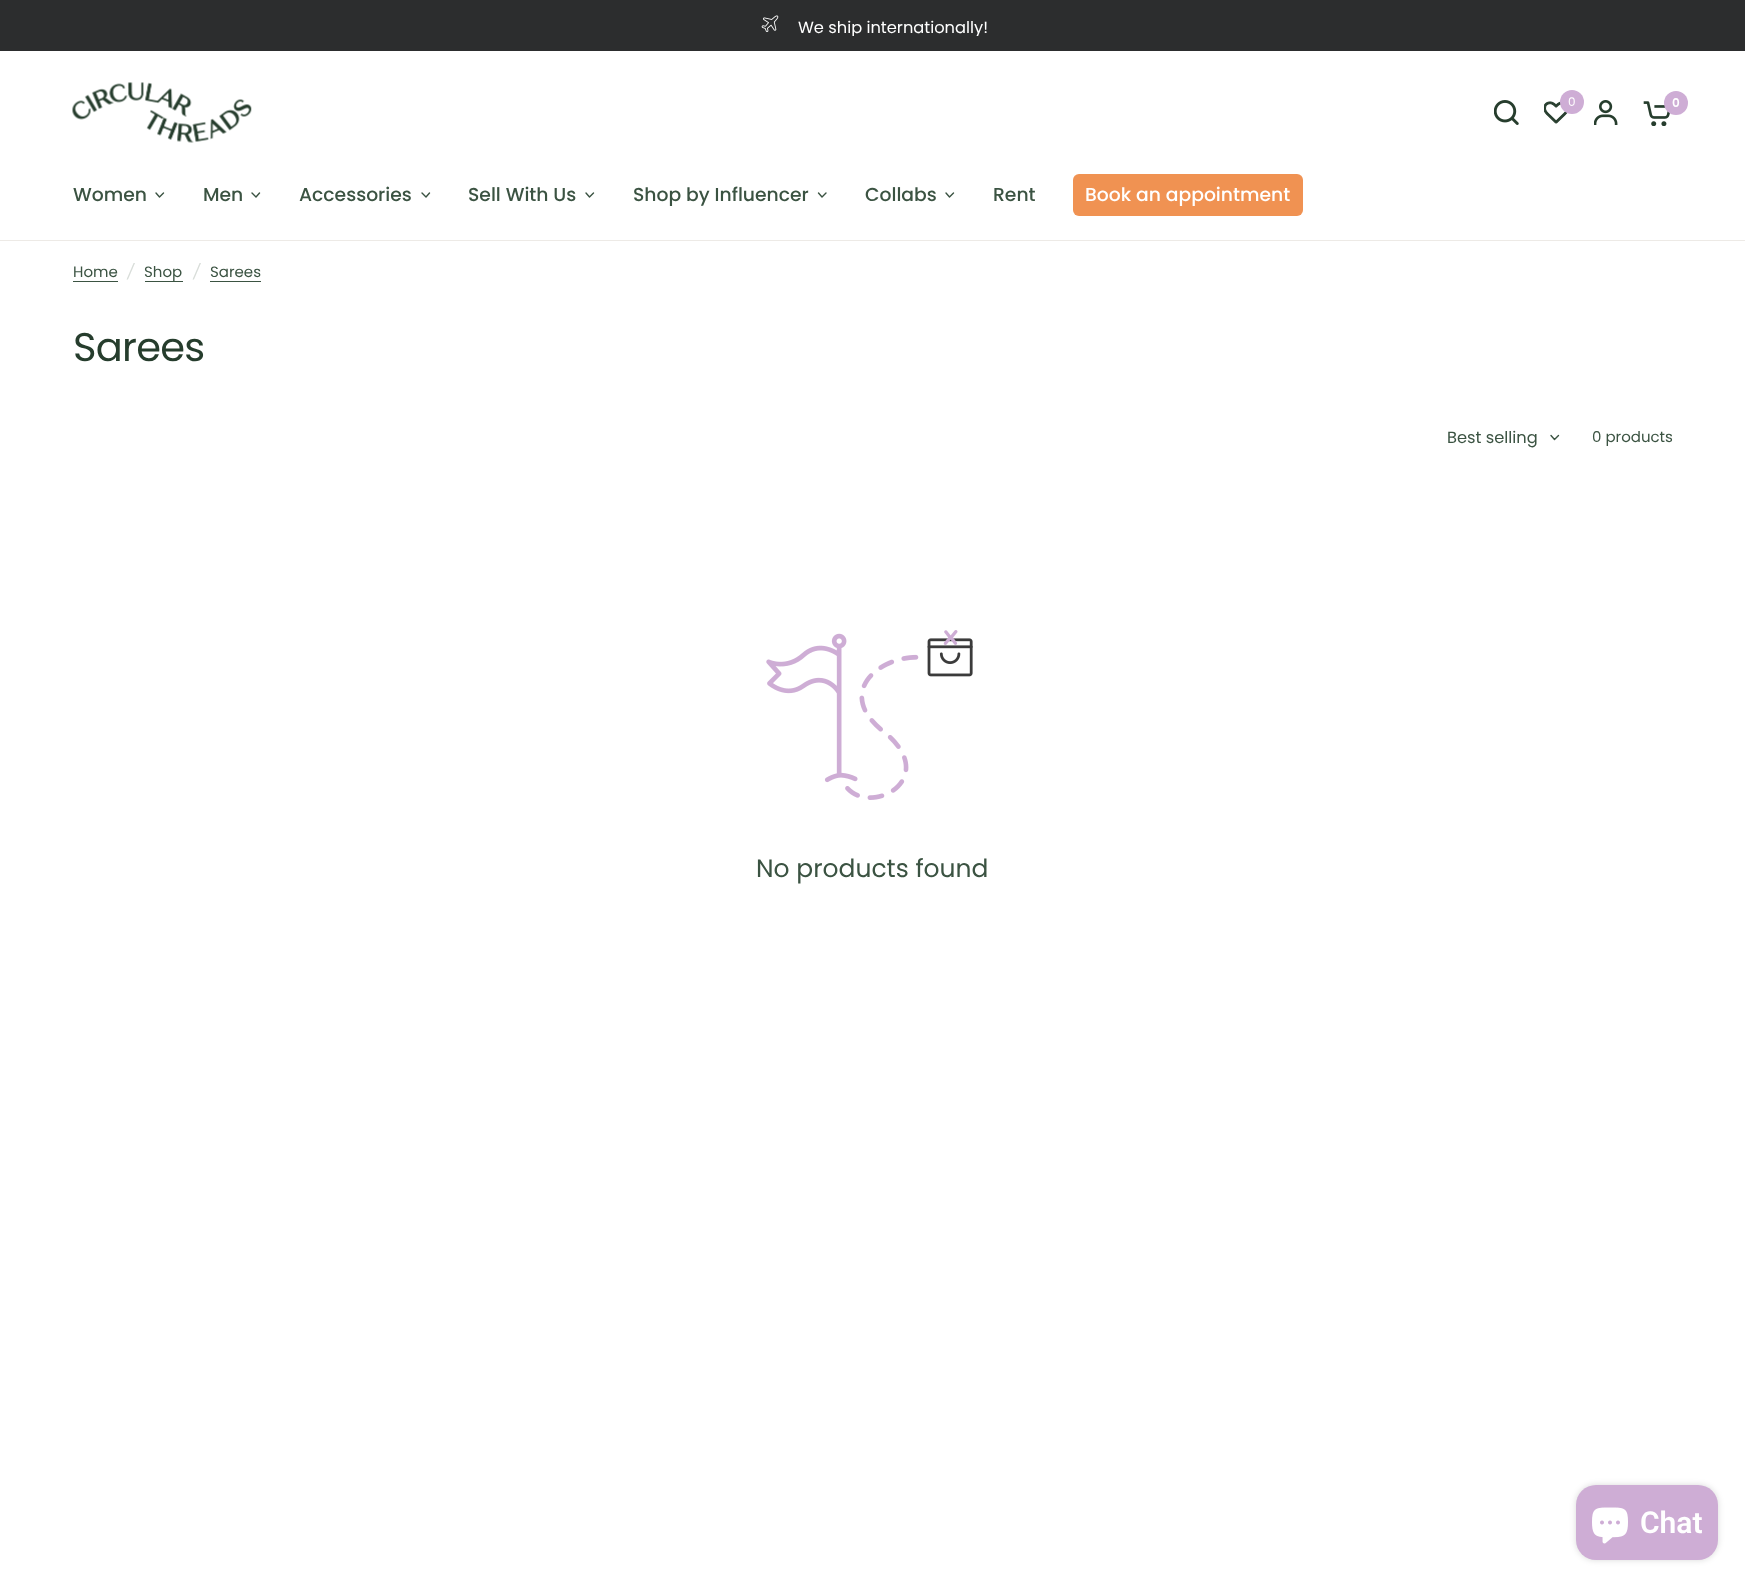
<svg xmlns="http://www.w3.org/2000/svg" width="1745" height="1586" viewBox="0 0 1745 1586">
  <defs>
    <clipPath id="clip1"><rect x="560" y="15" width="625" height="21"/></clipPath>
    <filter id="blur1" x="-50%" y="-200%" width="200%" height="500%"><feGaussianBlur stdDeviation="3"/></filter>
  </defs>
  <rect width="100%" height="100%" fill="#ffffff"/>
  <rect x="0" y="0" width="1745" height="51" fill="#2c2d2e"/>
  <image x="761" y="15" width="18" height="17" href="img1.png"/>
  <g clip-path="url(#clip1)">
    <text x="798" y="33" font-family="Poppins" font-size="16.25" fill="#ffffff">We ship internationally!</text>
  </g>
  <image x="72" y="82" width="180" height="61" href="img2.png"/>
  <image x="1494" y="100" width="25" height="25" href="img3.png"/>
  <image x="1544" y="101" width="24" height="23" href="img4.png"/>
  <circle cx="1572" cy="102" r="12" fill="#ceadd5"/>
  <text x="1568" y="106" font-family="Poppins" font-size="12" fill="#ffffff">0</text>
  <image x="1594" y="100" width="24" height="25" href="img5.png"/>
  <image x="1643" y="101" width="27" height="25" href="img6.png"/>
  <circle cx="1676" cy="103" r="12" fill="#ceadd5"/>
  <text x="1672" y="107" font-family="Poppins" font-size="12" font-weight="600" fill="#ffffff">0</text>
  <text x="73" y="201" font-family="Poppins" font-size="18.75" font-weight="500" fill="#3b5342">Women</text>
  <path d="M163.5 193L159.5 197L156 193" fill="none" stroke="#3b5342" stroke-width="1.4" stroke-linecap="round" stroke-linejoin="round"/>
  <text x="203" y="201" font-family="Poppins" font-size="18.75" font-weight="500" fill="#3b5342">Men</text>
  <path d="M259.5 193L256 197L252 193" fill="none" stroke="#3b5342" stroke-width="1.4" stroke-linecap="round" stroke-linejoin="round"/>
  <text x="299" y="201" font-family="Poppins" font-size="18.75" font-weight="500" fill="#3b5342">Accessories</text>
  <path d="M429.5 193L426 197L422 193" fill="none" stroke="#3b5342" stroke-width="1.4" stroke-linecap="round" stroke-linejoin="round"/>
  <text x="468" y="201" font-family="Poppins" font-size="18.75" font-weight="500" fill="#3b5342">Sell With Us</text>
  <path d="M593.5 193L589.5 197L586 193" fill="none" stroke="#3b5342" stroke-width="1.4" stroke-linecap="round" stroke-linejoin="round"/>
  <text x="633" y="201" font-family="Poppins" font-size="18.75" font-weight="500" fill="#3b5342">Shop by Influencer</text>
  <path d="M826 193L822 197L818.5 193" fill="none" stroke="#3b5342" stroke-width="1.4" stroke-linecap="round" stroke-linejoin="round"/>
  <text x="865" y="201" font-family="Poppins" font-size="18.75" font-weight="500" fill="#3b5342">Collabs</text>
  <path d="M953.5 193L949.5 197L946 193" fill="none" stroke="#3b5342" stroke-width="1.4" stroke-linecap="round" stroke-linejoin="round"/>
  <text x="993" y="201" font-family="Poppins" font-size="18.75" font-weight="500" fill="#3b5342">Rent</text>
  <rect x="1073" y="174" width="230" height="42" rx="6" fill="#f09252"/>
  <text x="1085" y="201" font-family="Poppins" font-size="18.75" font-weight="500" fill="#ffffff">Book an appointment</text>
  <rect x="0" y="240" width="1745" height="1" fill="#edeae6"/>
  <text x="73" y="277" font-family="Poppins" font-size="15" fill="#3b5342">Home</text>
  <rect x="73" y="281" width="45" height="1" fill="#3b5342"/>
  <text x="127" y="277" font-family="Poppins" font-size="15" font-style="italic" fill="#d8ddd9">/</text>
  <text x="144" y="277" font-family="Poppins" font-size="15" fill="#3b5342">Shop</text>
  <rect x="145" y="281" width="38" height="1" fill="#3b5342"/>
  <text x="193" y="277" font-family="Poppins" font-size="15" font-style="italic" fill="#d8ddd9">/</text>
  <text x="210" y="277" font-family="Poppins" font-size="15" fill="#3b5342">Sarees</text>
  <rect x="210" y="281" width="51" height="1" fill="#3b5342"/>
  <text x="73" y="361" font-family="Poppins" font-size="40" letter-spacing="-0.75" fill="#263d2d">Sarees</text>
  <text x="1447" y="443" font-family="Poppins" font-size="16.25" fill="#3b5342">Best selling</text>
  <path d="M1558.5 435.5L1554.5 439.5L1551 435.5" fill="none" stroke="#3b5342" stroke-width="1.4" stroke-linecap="round" stroke-linejoin="round"/>
  <text x="1592" y="442" font-family="Poppins" font-size="15" fill="#3b5342">0 products</text>
  <image x="766" y="630" width="207" height="170" href="img7.png"/>
  <text x="756" y="877" font-family="Poppins" font-size="25" fill="#3b5342">No products found</text>
  <rect x="1576" y="1485" width="142" height="75" rx="20" fill="#000000" fill-opacity="0.15" filter="url(#blur1)"/>
  <rect x="1576" y="1485" width="142" height="75" rx="20" fill="#ceadd5"/>
  <image x="1592" y="1507" width="36" height="37" href="img8.png"/>
  <text x="1640" y="1533" font-family="Roboto" font-size="30" font-weight="600" fill="#ffffff">Chat</text>
</svg>
